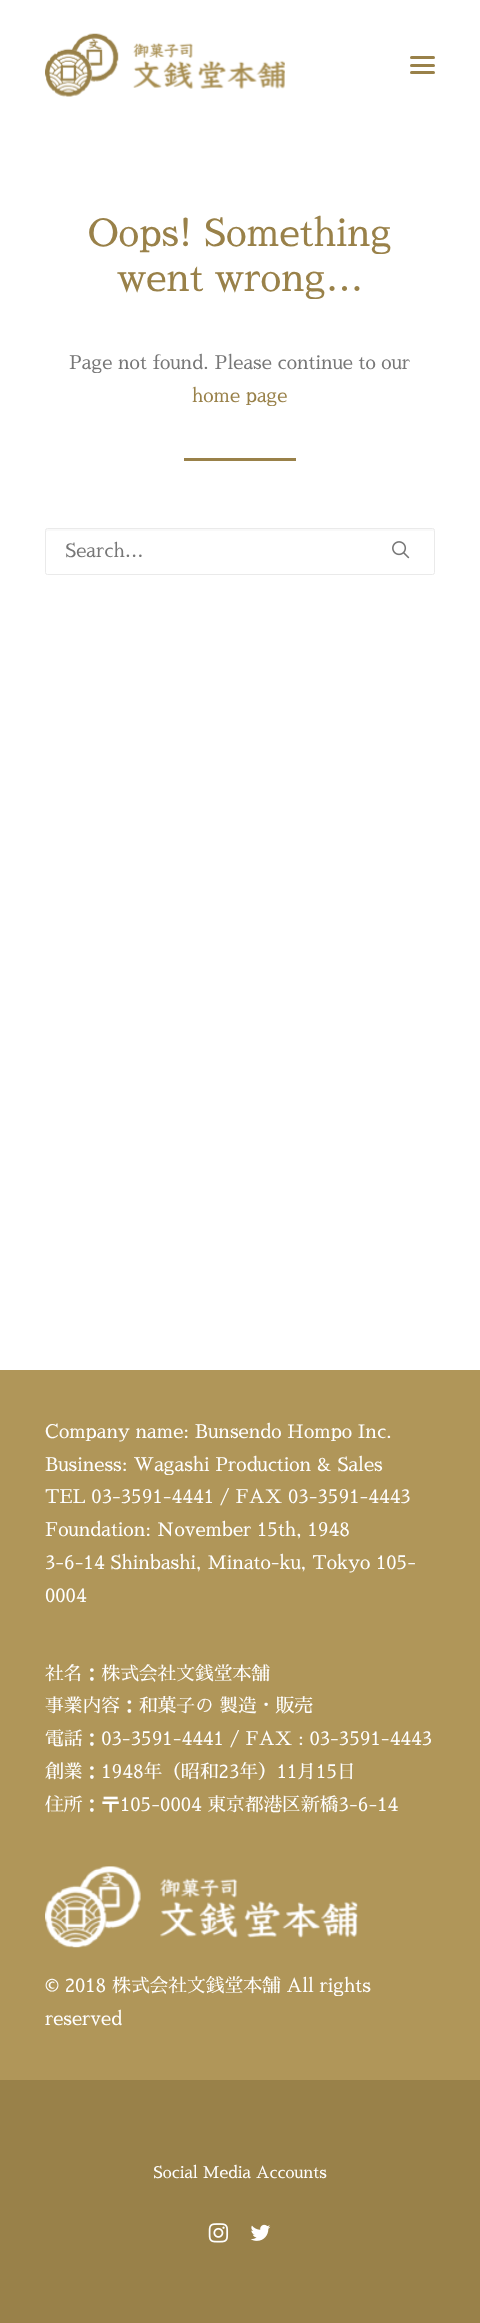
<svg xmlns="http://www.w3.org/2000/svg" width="480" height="2323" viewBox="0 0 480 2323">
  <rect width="100%" height="100%" fill="#ffffff"/>
  <image x="45" y="33" width="240" height="64" href="img1.png"/>
  <rect x="410" y="64" width="25" height="3" rx="1.5" fill="#998149"/>
  <rect x="410" y="56" width="25" height="3" rx="1.5" fill="#998149"/>
  <rect x="410" y="71" width="25" height="3" rx="1.5" fill="#998149"/>
  <text x="88" y="246" font-family="Sawarabi Mincho" font-size="37.5" fill="#998149">Oops! Something</text>
  <text x="117" y="291" font-family="Sawarabi Mincho" font-size="37.5" fill="#998149">went wrong…</text>
  <text x="69" y="369" font-family="Sawarabi Mincho" font-size="18.75" fill="#777777">Page not found. Please continue to our</text>
  <text x="192" y="402" font-family="Sawarabi Mincho" font-size="18.75" fill="#998149">home page</text>
  <rect x="184" y="458" width="112" height="3" fill="#998149"/>
  <path d="M48 531H433L434 532C434 531 434 529 433 529H46V532Z" fill="#f9f9f9"/>
  <rect x="45.5" y="528.5" width="389" height="46" rx="2" fill="none" stroke="#eaeaea"/>
  <text x="65" y="557" font-family="Sawarabi Mincho" font-size="18.75" fill="#777777">Search…</text>
  <image x="392" y="541" width="18" height="18" href="img2.png"/>
  <rect x="0" y="1370" width="480" height="710" fill="#b09659"/>
  <text x="45" y="1438" font-family="Sawarabi Mincho" font-size="18.75" fill="#ffffff">Company name: Bunsendo Hompo Inc.</text>
  <text x="45" y="1471" font-family="Sawarabi Mincho" font-size="18.75" fill="#ffffff">Business: Wagashi Production &amp; Sales</text>
  <text x="45" y="1503" font-family="Sawarabi Mincho" font-size="18.75" fill="#ffffff">TEL 03-3591-4441 / FAX 03-3591-4443</text>
  <text x="45" y="1536" font-family="Sawarabi Mincho" font-size="18.75" fill="#ffffff">Foundation: November 15th, 1948</text>
  <text x="45" y="1569" font-family="Sawarabi Mincho" font-size="18.75" fill="#ffffff">3-6-14 Shinbashi, Minato-ku, Tokyo 105-</text>
  <text x="45" y="1602" font-family="Sawarabi Mincho" font-size="18.75" fill="#ffffff">0004</text>
  <text x="45" y="1680" font-family="Sawarabi Mincho" font-size="18.75" fill="#ffffff">社名：株式会社文銭堂本舗</text>
  <text x="45" y="1712" font-family="Sawarabi Mincho" font-size="18.75" fill="#ffffff">事業内容：和菓子の 製造・販売</text>
  <text x="45" y="1745" font-family="Sawarabi Mincho" font-size="18.75" fill="#ffffff">電話：03-3591-4441 / FAX : 03-3591-4443</text>
  <text x="45" y="1778" font-family="Sawarabi Mincho" font-size="18.75" fill="#ffffff">創業：1948年（昭和23年）11月15日</text>
  <text x="45" y="1811" font-family="Sawarabi Mincho" font-size="18.75" fill="#ffffff">住所：〒105-0004 東京都港区新橋3-6-14</text>
  <image x="45" y="1866" width="313" height="82" href="img3.png"/>
  <text x="45" y="1992" font-family="Sawarabi Mincho" font-size="18.75" fill="#ffffff">© 2018 株式会社文銭堂本舗 All rights</text>
  <text x="45" y="2025" font-family="Sawarabi Mincho" font-size="18.75" fill="#ffffff">reserved</text>
  <rect x="0" y="2080" width="480" height="243" fill="#998149"/>
  <text x="153" y="2178" font-family="Sawarabi Mincho" font-size="16.25" fill="#ffffff">Social Media Accounts</text>
  <image x="208" y="2223" width="21" height="20" href="img4.png"/>
  <image x="250" y="2224" width="21" height="17" href="img5.png"/>
</svg>
